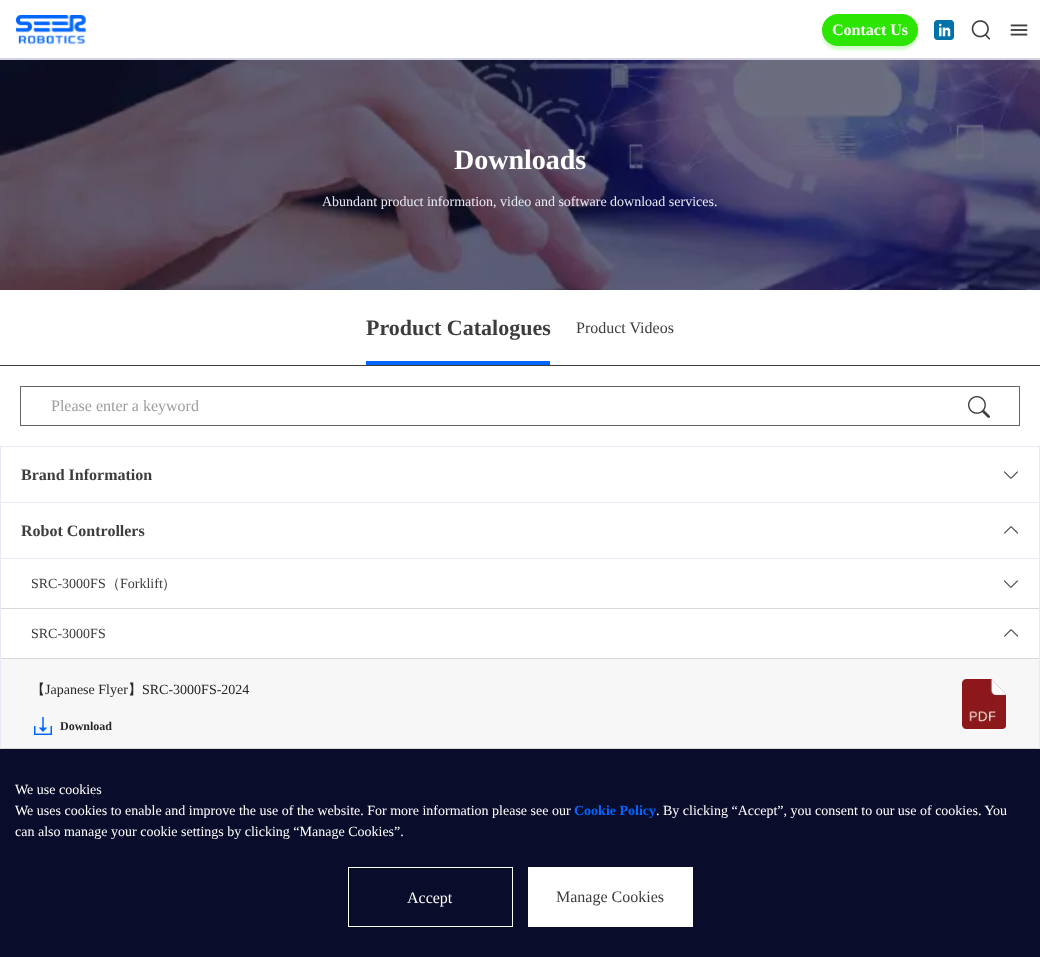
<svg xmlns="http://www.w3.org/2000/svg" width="1040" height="957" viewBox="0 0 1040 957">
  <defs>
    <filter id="blur1" x="-50%" y="-200%" width="200%" height="500%"><feGaussianBlur stdDeviation="1"/></filter>
  </defs>
  <rect width="100%" height="100%" fill="#ffffff"/>
  <rect x="0" y="58" width="1040" height="2" fill="#d2d2e1"/>
  <image x="16" y="15" width="70" height="30" href="img1.png"/>
  <rect x="822" y="18" width="96" height="32" rx="16" fill="#2ce503" fill-opacity="0.2" filter="url(#blur1)"/>
  <rect x="822" y="14" width="96" height="32" rx="16" fill="#2ce503"/>
  <text x="832" y="35" font-family="Liberation Serif" font-size="16" font-weight="bold" fill="#ffffff">Contact Us</text>
  <image x="934" y="20" width="20" height="20" href="img2.png"/>
  <image x="971" y="20" width="20" height="20" href="img3.png"/>
  <image x="1010" y="24" width="18" height="12" href="img4.png"/>
  <image x="0" y="60" width="1040" height="230" href="img5.png"/>
  <text x="454" y="169" font-family="Liberation Serif" font-size="28" font-weight="bold" fill="#ffffff">Downloads</text>
  <text x="322" y="206" font-family="Liberation Serif" font-size="14" fill="#e8e9f3">Abundant product information, video and software download services.</text>
  <rect x="0" y="365" width="1040" height="1" fill="#3d3d3d"/>
  <text x="366" y="335" font-family="Liberation Serif" font-size="22" font-weight="bold" fill="#3d3d3d">Product Catalogues</text>
  <rect x="366" y="361" width="184" height="4" fill="#0066ff"/>
  <text x="576" y="333" font-family="Liberation Serif" font-size="16" fill="#3d3d3d">Product Videos</text>
  <rect x="20.5" y="386.5" width="999" height="39" fill="none" stroke="#646464"/>
  <text x="51" y="411" font-family="Liberation Serif" font-size="16" fill="#9e9e9e">Please enter a keyword</text>
  <image x="968" y="396" width="22" height="22" href="img6.png"/>
  <rect x="0.5" y="446.5" width="1039" height="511" fill="none" stroke="#e8e9f3"/>
  <rect x="1" y="502" width="1038" height="1" fill="#e8e9f3"/>
  <text x="21" y="480" font-family="Liberation Serif" font-size="16" font-weight="bold" fill="#3d3d3d">Brand Information</text>
  <image x="1003" y="471" width="15" height="8" href="img7.png"/>
  <rect x="1" y="558" width="1038" height="1" fill="#e8e9f3"/>
  <text x="21" y="536" font-family="Liberation Serif" font-size="16" font-weight="bold" fill="#3d3d3d">Robot Controllers</text>
  <image x="1004" y="526" width="15" height="8" href="img8.png"/>
  <rect x="1" y="608" width="1038" height="1" fill="#d8d8d8"/>
  <text x="31" y="588" font-family="Liberation Serif" font-size="14" fill="#3d3d3d">SRC-3000FS</text>
  <text x="106" y="588" font-family="WenQuanYi Zen Hei" font-size="14" font-weight="500" fill="#3d3d3d">（</text>
  <text x="120" y="588" font-family="Liberation Serif" font-size="14" fill="#3d3d3d">Forklift</text>
  <text x="162" y="588" font-family="WenQuanYi Zen Hei" font-size="14" font-weight="500" fill="#3d3d3d">）</text>
  <image x="1003" y="580" width="15" height="8" href="img7.png"/>
  <rect x="1" y="658" width="1038" height="1" fill="#d8d8d8"/>
  <text x="31" y="638" font-family="Liberation Serif" font-size="14" fill="#3d3d3d">SRC-3000FS</text>
  <image x="1004" y="629" width="15" height="8" href="img8.png"/>
  <rect x="1" y="659" width="1038" height="89" fill="#f7f7f7"/>
  <rect x="1" y="748" width="1038" height="1" fill="#d8d8d8"/>
  <text x="31" y="694" font-family="WenQuanYi Zen Hei" font-size="14" font-weight="500" fill="#27272a">【</text>
  <text x="45" y="694" font-family="Liberation Serif" font-size="14" fill="#27272a">Japanese Flyer</text>
  <text x="128" y="694" font-family="WenQuanYi Zen Hei" font-size="14" font-weight="500" fill="#27272a">】</text>
  <text x="142" y="694" font-family="Liberation Serif" font-size="14" fill="#27272a">SRC-3000FS-2024</text>
  <image x="962" y="679" width="44" height="50" href="img9.png"/>
  <image x="34" y="717" width="18" height="18" href="img10.png"/>
  <text x="60" y="730" font-family="Liberation Serif" font-size="12" font-weight="bold" fill="#27272a">Download</text>
  <rect x="0" y="749" width="1040" height="208" fill="#0a0c2b"/>
  <text x="15" y="794" font-family="Liberation Serif" font-size="14" fill="#ffffff">We use cookies</text>
  <text x="15" y="815" font-family="Liberation Serif" font-size="14" fill="#ffffff">We uses cookies to enable and improve the use of the website. For more information please see our</text>
  <text x="574" y="815" font-family="Liberation Serif" font-size="14" font-weight="bold" fill="#0066ff">Cookie Policy</text>
  <text x="656" y="815" font-family="Liberation Serif" font-size="14" fill="#ffffff">. By clicking “Accept”, you consent to our use of cookies. You</text>
  <text x="15" y="836" font-family="Liberation Serif" font-size="14" fill="#ffffff">can also manage your cookie settings by clicking “Manage Cookies”.</text>
  <rect x="348.5" y="867.5" width="164" height="59" fill="none" stroke="#ffffff"/>
  <text x="407" y="903" font-family="Liberation Serif" font-size="16" fill="#ffffff">Accept</text>
  <rect x="528" y="867" width="165" height="60" fill="#ffffff"/>
  <text x="556" y="902" font-family="Liberation Serif" font-size="16" fill="#3d3d3d">Manage Cookies</text>
</svg>
